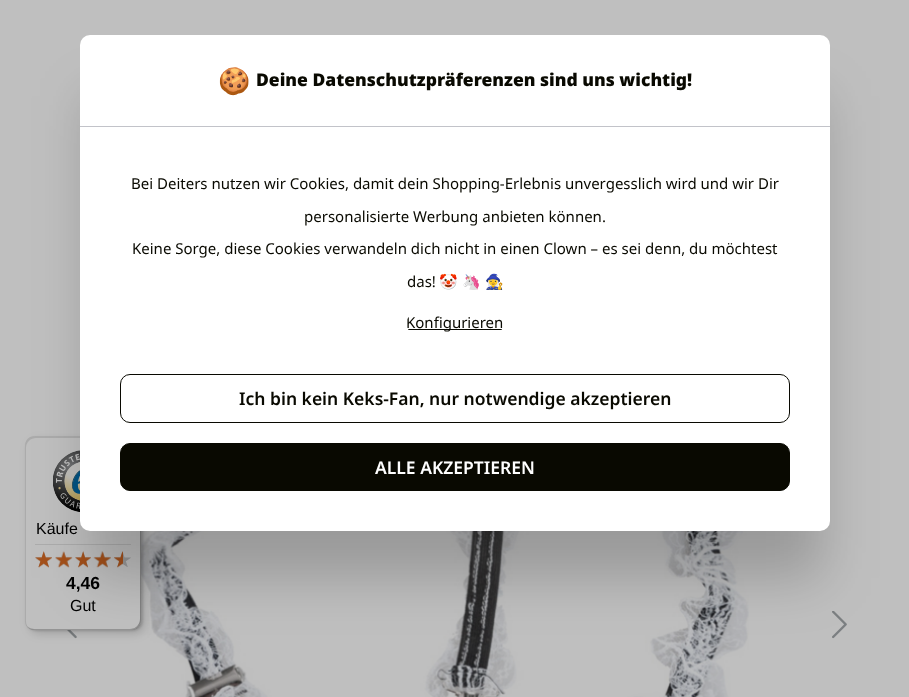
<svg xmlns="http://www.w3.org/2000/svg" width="909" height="697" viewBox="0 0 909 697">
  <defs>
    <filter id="blur1" x="-50%" y="-200%" width="200%" height="500%"><feGaussianBlur stdDeviation="5"/></filter>
    <filter id="blur2" x="-50%" y="-200%" width="200%" height="500%"><feGaussianBlur stdDeviation="1"/></filter>
    <filter id="blur3" x="-50%" y="-200%" width="200%" height="500%"><feGaussianBlur stdDeviation="27"/></filter>
    <clipPath id="clip1"><rect x="406" y="314" width="98" height="19" rx="9.5"/></clipPath>
  </defs>
  <rect width="100%" height="100%" fill="#bfbfbf"/>
  <image x="136" y="531" width="613" height="166" href="img12.png"/>
  <image x="67" y="630" width="10" height="9" href="img13.png"/>
  <rect x="29" y="440" width="116" height="194" rx="10" fill="#000000" fill-opacity="0.15" filter="url(#blur1)"/>
  <rect x="26" y="438" width="117" height="193" rx="10" fill="#000000" fill-opacity="0.15" filter="url(#blur2)"/>
  <rect x="25" y="436" width="116" height="194" rx="10" fill="#bfbfbf"/>
  <path d="M36 438H132C135 438 138 439 140 442C138 438 135 436 131 436H35C29 436 25 440 25 446V620C25 623 26 626 28 628C27 626 26 624 26 621V448C26 442 31 438 36 438Z" fill="#000000" fill-opacity="0.1"/>
  <path d="M27 627C29 629 32 630 35 630H131C137 630 141 626 141 620V446C141 444 140 441 139 440C140 441 140 443 140 445V619C140 624 136 629 130 629H34C31 629 29 628 27 627Z" fill="#000000" fill-opacity="0.2"/>
  <path d="M27 626C29 629 32 630 35 630H131C137 630 141 626 141 620V446C141 440 137 436 131 436H130C136 436 140 440 140 446V619C140 625 136 629 130 629H34C32 629 29 628 27 626Z" fill="#262626" fill-opacity="0.2"/>
  <path d="M27 626C29 629 32 630 35 630H131C137 630 141 626 141 620V619C141 625 136 629 131 629H34C32 629 29 628 27 626ZM139 440C137 437 134 436 131 436C134 436 137 437 139 440Z" fill="#bfbfbf" fill-opacity="0.3" fill-rule="evenodd"/>
  <image x="53" y="450" width="27" height="62" href="img1.png"/>
  <rect x="35" y="544" width="96" height="1" fill="#acacac"/>
  <image x="35" y="552" width="17" height="15" href="img2.png"/>
  <image x="55" y="552" width="17" height="15" href="img3.png"/>
  <image x="75" y="552" width="16" height="15" href="img4.png"/>
  <image x="94" y="551" width="17" height="16" href="img5.png"/>
  <image x="114" y="552" width="17" height="15" href="img6.png"/>
  <image x="35" y="551" width="17" height="17" href="img7.png"/>
  <image x="55" y="551" width="18" height="17" href="img8.png"/>
  <image x="75" y="551" width="16" height="17" href="img9.png"/>
  <image x="93" y="551" width="18" height="17" href="img10.png"/>
  <image x="114" y="551" width="9" height="17" href="img11.png"/>
  <image x="832" y="611" width="15" height="28" href="img14.png"/>
  <rect x="88" y="96" width="735" height="482" rx="2.5" fill="#000000" fill-opacity="0.2" filter="url(#blur3)"/>
  <rect x="80" y="35" width="750" height="496" rx="10" fill="#ffffff"/>
  <rect x="80" y="126" width="750" height="1" fill="#c2c3c9"/>
  <text x="218" y="90" font-family="Noto Color Emoji" font-size="26" font-weight="bold" fill="#090901">🍪</text>
  <text x="256" y="86" font-family="Noto Sans" font-size="17.5" font-weight="900" fill="#090901">Deine Datenschutzpräferenzen sind uns wichtig!</text>
  <text x="131" y="189" font-family="Noto Sans" font-size="15" fill="#090901">Bei Deiters nutzen wir Cookies, damit dein Shopping-Erlebnis unvergesslich wird und wir Dir</text>
  <text x="304" y="222" font-family="Noto Sans" font-size="15" fill="#090901">personalisierte Werbung anbieten können.</text>
  <text x="132" y="254" font-family="Noto Sans" font-size="15" fill="#090901">Keine Sorge, diese Cookies verwandeln dich nicht in einen Clown – es sei denn, du möchtest</text>
  <text x="407" y="287" font-family="Noto Sans" font-size="15" fill="#090901">das!</text>
  <text x="439" y="287" font-family="Noto Color Emoji" font-size="15" fill="#090901">🤡</text>
  <text x="462" y="287" font-family="Noto Color Emoji" font-size="15" fill="#090901">🦄</text>
  <text x="485" y="287" font-family="Noto Color Emoji" font-size="15" fill="#090901">🧙‍♀️</text>
  <g clip-path="url(#clip1)">
    <rect x="406" y="329" width="98" height="1" fill="#090901"/>
    <text x="406" y="328" font-family="Noto Sans" font-size="15" fill="#090901">Konfigurieren</text>
  </g>
  <rect x="120.5" y="374.5" width="669" height="48" rx="9.5" fill="none" stroke="#090901"/>
  <text x="239" y="405" font-family="Noto Sans" font-size="17.5" font-weight="600" fill="#090901">Ich bin kein Keks-Fan, nur notwendige akzeptieren</text>
  <rect x="120.5" y="443.5" width="669" height="47" rx="9.5" fill="#090901" stroke="#090901"/>
  <text x="375" y="474" font-family="Noto Sans" font-size="17.5" font-weight="600" fill="#ffffff">ALLE AKZEPTIEREN</text>
  <text x="36" y="534" font-family="Liberation Sans" font-size="16" fill="#000000">Käufe</text>
  <text x="66" y="589" font-family="Liberation Sans" font-size="17.5" font-weight="bold" fill="#000000">4,46</text>
  <text x="70" y="611" font-family="Liberation Sans" font-size="16" fill="#000000">Gut</text>
</svg>
